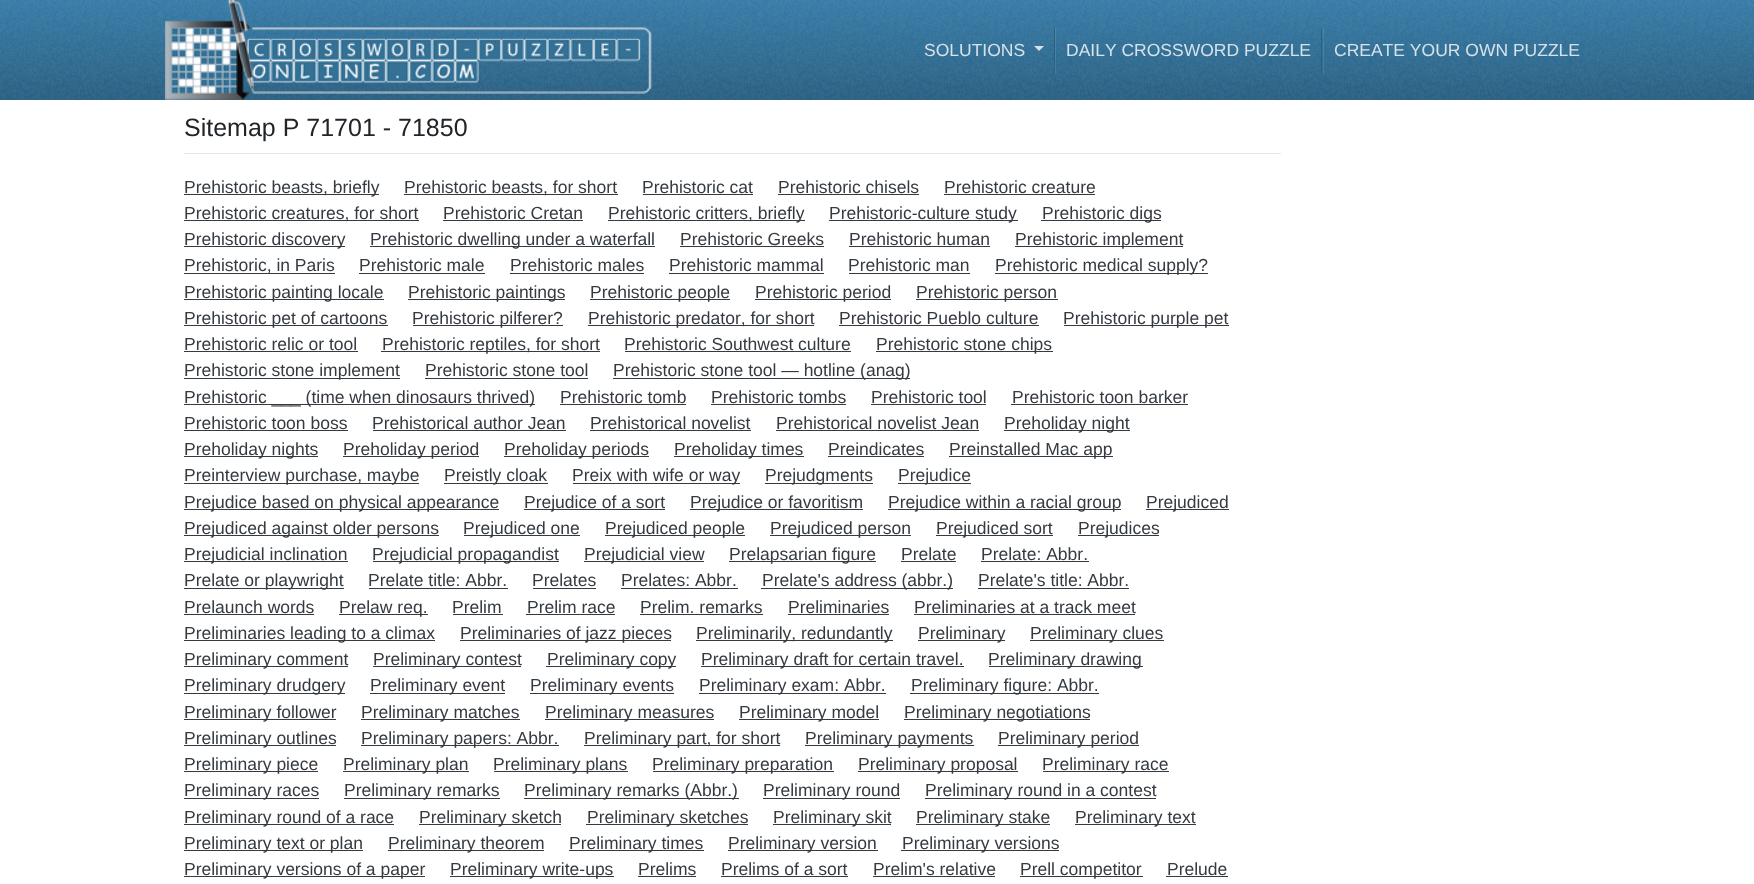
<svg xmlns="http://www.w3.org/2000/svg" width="1754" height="884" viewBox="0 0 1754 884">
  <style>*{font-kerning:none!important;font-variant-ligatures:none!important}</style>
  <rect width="100%" height="100%" fill="#ffffff"/>
  <image x="0" y="0" width="1754" height="100" href="img1.png"/>
  <image x="165" y="0" width="487" height="100" href="img2.png"/>
  <rect x="1054" y="28" width="1" height="46" fill="#2a6082"/>
  <text x="924" y="56" font-family="Liberation Sans" font-size="17.5" fill="#d5e2ea">SOLUTIONS</text>
  <path d="M1034 46H1044L1039 51Z" fill="#d5e2ea"/>
  <rect x="1321" y="28" width="1" height="46" fill="#2a6082"/>
  <rect x="1055" y="28" width="1" height="46" fill="#ffffff" fill-opacity="0.1"/>
  <text x="1066" y="56" font-family="Liberation Sans" font-size="17.5" fill="#d5e2ea">DAILY CROSSWORD PUZZLE</text>
  <rect x="1323" y="28" width="1" height="46" fill="#ffffff" fill-opacity="0.1"/>
  <text x="1334" y="56" font-family="Liberation Sans" font-size="17.5" fill="#d5e2ea">CREATE YOUR OWN PUZZLE</text>
  <text x="184" y="136" font-family="Liberation Sans" font-size="25" fill="#212529">Sitemap P 71701 - 71850</text>
  <rect x="184" y="153" width="1097" height="1" fill="#e6e6e6"/>
  <rect x="184" y="194" width="195" height="1" fill="#343a40"/>
  <text x="184" y="193" font-family="Liberation Sans" font-size="17.5" fill="#343a40">Prehistoric beasts, briefly</text>
  <rect x="404" y="194" width="214" height="1" fill="#343a40"/>
  <text x="404" y="193" font-family="Liberation Sans" font-size="17.5" fill="#343a40">Prehistoric beasts, for short</text>
  <text x="642" y="193" font-family="Liberation Sans" font-size="17.5" fill="#343a40">Prehistoric cat</text>
  <rect x="643" y="194" width="110" height="1" fill="#343a40"/>
  <text x="778" y="193" font-family="Liberation Sans" font-size="17.5" fill="#343a40">Prehistoric chisels</text>
  <rect x="778" y="194" width="141" height="1" fill="#343a40"/>
  <text x="944" y="193" font-family="Liberation Sans" font-size="17.5" fill="#343a40">Prehistoric creature</text>
  <rect x="944" y="194" width="151" height="1" fill="#343a40"/>
  <rect x="184" y="220" width="235" height="1" fill="#343a40"/>
  <text x="184" y="219" font-family="Liberation Sans" font-size="17.5" fill="#343a40">Prehistoric creatures, for short</text>
  <text x="443" y="219" font-family="Liberation Sans" font-size="17.5" fill="#343a40">Prehistoric Cretan</text>
  <rect x="443" y="220" width="140" height="1" fill="#343a40"/>
  <rect x="608" y="220" width="197" height="1" fill="#343a40"/>
  <text x="608" y="219" font-family="Liberation Sans" font-size="17.5" fill="#343a40">Prehistoric critters, briefly</text>
  <rect x="829" y="220" width="189" height="1" fill="#343a40"/>
  <text x="829" y="219" font-family="Liberation Sans" font-size="17.5" fill="#343a40">Prehistoric-culture study</text>
  <rect x="1041" y="220" width="120" height="1" fill="#343a40"/>
  <text x="1042" y="219" font-family="Liberation Sans" font-size="17.5" fill="#343a40">Prehistoric digs</text>
  <rect x="184" y="246" width="161" height="1" fill="#343a40"/>
  <text x="184" y="245" font-family="Liberation Sans" font-size="17.5" fill="#343a40">Prehistoric discovery</text>
  <rect x="370" y="246" width="285" height="1" fill="#343a40"/>
  <text x="370" y="245" font-family="Liberation Sans" font-size="17.5" fill="#343a40">Prehistoric dwelling under a waterfall</text>
  <text x="680" y="245" font-family="Liberation Sans" font-size="17.5" fill="#343a40">Prehistoric Greeks</text>
  <rect x="680" y="246" width="144" height="1" fill="#343a40"/>
  <text x="849" y="245" font-family="Liberation Sans" font-size="17.5" fill="#343a40">Prehistoric human</text>
  <rect x="849" y="246" width="141" height="1" fill="#343a40"/>
  <rect x="1015" y="246" width="168" height="1" fill="#343a40"/>
  <text x="1015" y="245" font-family="Liberation Sans" font-size="17.5" fill="#343a40">Prehistoric implement</text>
  <rect x="184" y="273" width="151" height="1" fill="#343a40"/>
  <text x="184" y="271" font-family="Liberation Sans" font-size="17.5" fill="#343a40">Prehistoric, in Paris</text>
  <text x="359" y="271" font-family="Liberation Sans" font-size="17.5" fill="#343a40">Prehistoric male</text>
  <rect x="359" y="273" width="126" height="1" fill="#343a40"/>
  <text x="510" y="271" font-family="Liberation Sans" font-size="17.5" fill="#343a40">Prehistoric males</text>
  <rect x="510" y="273" width="134" height="1" fill="#343a40"/>
  <text x="669" y="271" font-family="Liberation Sans" font-size="17.5" fill="#343a40">Prehistoric mammal</text>
  <rect x="669" y="273" width="155" height="1" fill="#343a40"/>
  <text x="848" y="271" font-family="Liberation Sans" font-size="17.5" fill="#343a40">Prehistoric man</text>
  <rect x="849" y="273" width="121" height="1" fill="#343a40"/>
  <rect x="995" y="273" width="213" height="1" fill="#343a40"/>
  <text x="995" y="271" font-family="Liberation Sans" font-size="17.5" fill="#343a40">Prehistoric medical supply?</text>
  <rect x="184" y="299" width="200" height="1" fill="#343a40"/>
  <text x="184" y="298" font-family="Liberation Sans" font-size="17.5" fill="#343a40">Prehistoric painting locale</text>
  <rect x="408" y="299" width="157" height="1" fill="#343a40"/>
  <text x="408" y="298" font-family="Liberation Sans" font-size="17.5" fill="#343a40">Prehistoric paintings</text>
  <rect x="590" y="299" width="140" height="1" fill="#343a40"/>
  <text x="590" y="298" font-family="Liberation Sans" font-size="17.5" fill="#343a40">Prehistoric people</text>
  <rect x="755" y="299" width="136" height="1" fill="#343a40"/>
  <text x="755" y="298" font-family="Liberation Sans" font-size="17.5" fill="#343a40">Prehistoric period</text>
  <rect x="916" y="299" width="142" height="1" fill="#343a40"/>
  <text x="916" y="298" font-family="Liberation Sans" font-size="17.5" fill="#343a40">Prehistoric person</text>
  <rect x="184" y="325" width="204" height="1" fill="#343a40"/>
  <text x="184" y="324" font-family="Liberation Sans" font-size="17.5" fill="#343a40">Prehistoric pet of cartoons</text>
  <rect x="413" y="325" width="150" height="1" fill="#343a40"/>
  <text x="412" y="324" font-family="Liberation Sans" font-size="17.5" fill="#343a40">Prehistoric pilferer?</text>
  <rect x="588" y="325" width="226" height="1" fill="#343a40"/>
  <text x="588" y="324" font-family="Liberation Sans" font-size="17.5" fill="#343a40">Prehistoric predator, for short</text>
  <text x="839" y="324" font-family="Liberation Sans" font-size="17.5" fill="#343a40">Prehistoric Pueblo culture</text>
  <rect x="839" y="325" width="200" height="1" fill="#343a40"/>
  <rect x="1064" y="325" width="165" height="1" fill="#343a40"/>
  <text x="1063" y="324" font-family="Liberation Sans" font-size="17.5" fill="#343a40">Prehistoric purple pet</text>
  <text x="184" y="350" font-family="Liberation Sans" font-size="17.5" fill="#343a40">Prehistoric relic or tool</text>
  <rect x="184" y="351" width="174" height="1" fill="#343a40"/>
  <rect x="381" y="351" width="219" height="1" fill="#343a40"/>
  <text x="382" y="350" font-family="Liberation Sans" font-size="17.5" fill="#343a40">Prehistoric reptiles, for short</text>
  <text x="624" y="350" font-family="Liberation Sans" font-size="17.5" fill="#343a40">Prehistoric Southwest culture</text>
  <rect x="625" y="351" width="226" height="1" fill="#343a40"/>
  <rect x="876" y="351" width="177" height="1" fill="#343a40"/>
  <text x="876" y="350" font-family="Liberation Sans" font-size="17.5" fill="#343a40">Prehistoric stone chips</text>
  <rect x="184" y="378" width="216" height="1" fill="#343a40"/>
  <text x="184" y="376" font-family="Liberation Sans" font-size="17.5" fill="#343a40">Prehistoric stone implement</text>
  <text x="425" y="376" font-family="Liberation Sans" font-size="17.5" fill="#343a40">Prehistoric stone tool</text>
  <rect x="425" y="378" width="163" height="1" fill="#343a40"/>
  <rect x="613" y="378" width="297" height="1" fill="#343a40"/>
  <text x="613" y="376" font-family="Liberation Sans" font-size="17.5" fill="#343a40">Prehistoric stone tool — hotline (anag)</text>
  <rect x="184" y="404" width="351" height="1" fill="#343a40"/>
  <text x="184" y="403" font-family="Liberation Sans" font-size="17.5" fill="#343a40">Prehistoric ___ (time when dinosaurs thrived)</text>
  <text x="560" y="403" font-family="Liberation Sans" font-size="17.5" fill="#343a40">Prehistoric tomb</text>
  <rect x="560" y="404" width="126" height="1" fill="#343a40"/>
  <text x="711" y="403" font-family="Liberation Sans" font-size="17.5" fill="#343a40">Prehistoric tombs</text>
  <rect x="711" y="404" width="135" height="1" fill="#343a40"/>
  <text x="871" y="403" font-family="Liberation Sans" font-size="17.5" fill="#343a40">Prehistoric tool</text>
  <rect x="871" y="404" width="115" height="1" fill="#343a40"/>
  <text x="1012" y="403" font-family="Liberation Sans" font-size="17.5" fill="#343a40">Prehistoric toon barker</text>
  <rect x="1011" y="404" width="177" height="1" fill="#343a40"/>
  <text x="184" y="429" font-family="Liberation Sans" font-size="17.5" fill="#343a40">Prehistoric toon boss</text>
  <rect x="184" y="430" width="164" height="1" fill="#343a40"/>
  <text x="372" y="429" font-family="Liberation Sans" font-size="17.5" fill="#343a40">Prehistorical author Jean</text>
  <rect x="373" y="430" width="193" height="1" fill="#343a40"/>
  <text x="590" y="429" font-family="Liberation Sans" font-size="17.5" fill="#343a40">Prehistorical novelist</text>
  <rect x="590" y="430" width="161" height="1" fill="#343a40"/>
  <text x="776" y="429" font-family="Liberation Sans" font-size="17.5" fill="#343a40">Prehistorical novelist Jean</text>
  <rect x="776" y="430" width="203" height="1" fill="#343a40"/>
  <rect x="1004" y="430" width="126" height="1" fill="#343a40"/>
  <text x="1004" y="429" font-family="Liberation Sans" font-size="17.5" fill="#343a40">Preholiday night</text>
  <rect x="184" y="456" width="134" height="1" fill="#343a40"/>
  <text x="184" y="455" font-family="Liberation Sans" font-size="17.5" fill="#343a40">Preholiday nights</text>
  <rect x="343" y="456" width="136" height="1" fill="#343a40"/>
  <text x="343" y="455" font-family="Liberation Sans" font-size="17.5" fill="#343a40">Preholiday period</text>
  <rect x="504" y="456" width="145" height="1" fill="#343a40"/>
  <text x="504" y="455" font-family="Liberation Sans" font-size="17.5" fill="#343a40">Preholiday periods</text>
  <rect x="674" y="456" width="130" height="1" fill="#343a40"/>
  <text x="674" y="455" font-family="Liberation Sans" font-size="17.5" fill="#343a40">Preholiday times</text>
  <text x="828" y="455" font-family="Liberation Sans" font-size="17.5" fill="#343a40">Preindicates</text>
  <rect x="828" y="456" width="96" height="1" fill="#343a40"/>
  <rect x="949" y="456" width="164" height="1" fill="#343a40"/>
  <text x="949" y="455" font-family="Liberation Sans" font-size="17.5" fill="#343a40">Preinstalled Mac app</text>
  <rect x="184" y="483" width="235" height="1" fill="#343a40"/>
  <text x="184" y="481" font-family="Liberation Sans" font-size="17.5" fill="#343a40">Preinterview purchase, maybe</text>
  <rect x="444" y="483" width="104" height="1" fill="#343a40"/>
  <text x="444" y="481" font-family="Liberation Sans" font-size="17.5" fill="#343a40">Preistly cloak</text>
  <rect x="573" y="483" width="167" height="1" fill="#343a40"/>
  <text x="572" y="481" font-family="Liberation Sans" font-size="17.5" fill="#343a40">Preix with wife or way</text>
  <rect x="765" y="483" width="108" height="1" fill="#343a40"/>
  <text x="765" y="481" font-family="Liberation Sans" font-size="17.5" fill="#343a40">Prejudgments</text>
  <rect x="898" y="483" width="73" height="1" fill="#343a40"/>
  <text x="898" y="481" font-family="Liberation Sans" font-size="17.5" fill="#343a40">Prejudice</text>
  <rect x="184" y="509" width="315" height="1" fill="#343a40"/>
  <text x="184" y="508" font-family="Liberation Sans" font-size="17.5" fill="#343a40">Prejudice based on physical appearance</text>
  <rect x="524" y="509" width="141" height="1" fill="#343a40"/>
  <text x="524" y="508" font-family="Liberation Sans" font-size="17.5" fill="#343a40">Prejudice of a sort</text>
  <rect x="690" y="509" width="173" height="1" fill="#343a40"/>
  <text x="690" y="508" font-family="Liberation Sans" font-size="17.5" fill="#343a40">Prejudice or favoritism</text>
  <rect x="888" y="509" width="233" height="1" fill="#343a40"/>
  <text x="888" y="508" font-family="Liberation Sans" font-size="17.5" fill="#343a40">Prejudice within a racial group</text>
  <rect x="1146" y="509" width="83" height="1" fill="#343a40"/>
  <text x="1146" y="508" font-family="Liberation Sans" font-size="17.5" fill="#343a40">Prejudiced</text>
  <rect x="184" y="535" width="255" height="1" fill="#343a40"/>
  <text x="184" y="534" font-family="Liberation Sans" font-size="17.5" fill="#343a40">Prejudiced against older persons</text>
  <rect x="464" y="535" width="116" height="1" fill="#343a40"/>
  <text x="463" y="534" font-family="Liberation Sans" font-size="17.5" fill="#343a40">Prejudiced one</text>
  <rect x="605" y="535" width="140" height="1" fill="#343a40"/>
  <text x="605" y="534" font-family="Liberation Sans" font-size="17.5" fill="#343a40">Prejudiced people</text>
  <rect x="770" y="535" width="141" height="1" fill="#343a40"/>
  <text x="770" y="534" font-family="Liberation Sans" font-size="17.5" fill="#343a40">Prejudiced person</text>
  <rect x="936" y="535" width="117" height="1" fill="#343a40"/>
  <text x="936" y="534" font-family="Liberation Sans" font-size="17.5" fill="#343a40">Prejudiced sort</text>
  <rect x="1078" y="535" width="81" height="1" fill="#343a40"/>
  <text x="1078" y="534" font-family="Liberation Sans" font-size="17.5" fill="#343a40">Prejudices</text>
  <rect x="184" y="561" width="164" height="1" fill="#343a40"/>
  <text x="184" y="560" font-family="Liberation Sans" font-size="17.5" fill="#343a40">Prejudicial inclination</text>
  <rect x="373" y="561" width="186" height="1" fill="#343a40"/>
  <text x="372" y="560" font-family="Liberation Sans" font-size="17.5" fill="#343a40">Prejudicial propagandist</text>
  <rect x="584" y="561" width="120" height="1" fill="#343a40"/>
  <text x="584" y="560" font-family="Liberation Sans" font-size="17.5" fill="#343a40">Prejudicial view</text>
  <rect x="729" y="561" width="147" height="1" fill="#343a40"/>
  <text x="729" y="560" font-family="Liberation Sans" font-size="17.5" fill="#343a40">Prelapsarian figure</text>
  <text x="901" y="560" font-family="Liberation Sans" font-size="17.5" fill="#343a40">Prelate</text>
  <rect x="901" y="561" width="55" height="1" fill="#343a40"/>
  <text x="981" y="560" font-family="Liberation Sans" font-size="17.5" fill="#343a40">Prelate: Abbr.</text>
  <rect x="981" y="561" width="108" height="1" fill="#343a40"/>
  <rect x="184" y="588" width="160" height="1" fill="#343a40"/>
  <text x="184" y="586" font-family="Liberation Sans" font-size="17.5" fill="#343a40">Prelate or playwright</text>
  <text x="368" y="586" font-family="Liberation Sans" font-size="17.5" fill="#343a40">Prelate title: Abbr.</text>
  <rect x="369" y="588" width="139" height="1" fill="#343a40"/>
  <text x="532" y="586" font-family="Liberation Sans" font-size="17.5" fill="#343a40">Prelates</text>
  <rect x="533" y="588" width="63" height="1" fill="#343a40"/>
  <text x="621" y="586" font-family="Liberation Sans" font-size="17.5" fill="#343a40">Prelates: Abbr.</text>
  <rect x="621" y="588" width="117" height="1" fill="#343a40"/>
  <rect x="761" y="588" width="192" height="1" fill="#343a40"/>
  <text x="762" y="586" font-family="Liberation Sans" font-size="17.5" fill="#343a40">Prelate's address (abbr.)</text>
  <text x="978" y="586" font-family="Liberation Sans" font-size="17.5" fill="#343a40">Prelate's title: Abbr.</text>
  <rect x="978" y="588" width="151" height="1" fill="#343a40"/>
  <text x="184" y="613" font-family="Liberation Sans" font-size="17.5" fill="#343a40">Prelaunch words</text>
  <rect x="184" y="614" width="130" height="1" fill="#343a40"/>
  <rect x="339" y="614" width="89" height="1" fill="#343a40"/>
  <text x="339" y="613" font-family="Liberation Sans" font-size="17.5" fill="#343a40">Prelaw req.</text>
  <text x="452" y="613" font-family="Liberation Sans" font-size="17.5" fill="#343a40">Prelim</text>
  <rect x="453" y="614" width="50" height="1" fill="#343a40"/>
  <text x="527" y="613" font-family="Liberation Sans" font-size="17.5" fill="#343a40">Prelim race</text>
  <rect x="526" y="614" width="89" height="1" fill="#343a40"/>
  <text x="640" y="613" font-family="Liberation Sans" font-size="17.5" fill="#343a40">Prelim. remarks</text>
  <rect x="640" y="614" width="123" height="1" fill="#343a40"/>
  <text x="788" y="613" font-family="Liberation Sans" font-size="17.5" fill="#343a40">Preliminaries</text>
  <rect x="788" y="614" width="101" height="1" fill="#343a40"/>
  <text x="914" y="613" font-family="Liberation Sans" font-size="17.5" fill="#343a40">Preliminaries at a track meet</text>
  <rect x="914" y="614" width="221" height="1" fill="#343a40"/>
  <rect x="184" y="640" width="251" height="1" fill="#343a40"/>
  <text x="184" y="639" font-family="Liberation Sans" font-size="17.5" fill="#343a40">Preliminaries leading to a climax</text>
  <rect x="460" y="640" width="211" height="1" fill="#343a40"/>
  <text x="460" y="639" font-family="Liberation Sans" font-size="17.5" fill="#343a40">Preliminaries of jazz pieces</text>
  <rect x="696" y="640" width="197" height="1" fill="#343a40"/>
  <text x="696" y="639" font-family="Liberation Sans" font-size="17.5" fill="#343a40">Preliminarily, redundantly</text>
  <rect x="918" y="640" width="87" height="1" fill="#343a40"/>
  <text x="918" y="639" font-family="Liberation Sans" font-size="17.5" fill="#343a40">Preliminary</text>
  <rect x="1030" y="640" width="134" height="1" fill="#343a40"/>
  <text x="1030" y="639" font-family="Liberation Sans" font-size="17.5" fill="#343a40">Preliminary clues</text>
  <rect x="184" y="666" width="164" height="1" fill="#343a40"/>
  <text x="184" y="665" font-family="Liberation Sans" font-size="17.5" fill="#343a40">Preliminary comment</text>
  <rect x="373" y="666" width="148" height="1" fill="#343a40"/>
  <text x="373" y="665" font-family="Liberation Sans" font-size="17.5" fill="#343a40">Preliminary contest</text>
  <rect x="546" y="666" width="130" height="1" fill="#343a40"/>
  <text x="547" y="665" font-family="Liberation Sans" font-size="17.5" fill="#343a40">Preliminary copy</text>
  <rect x="701" y="666" width="263" height="1" fill="#343a40"/>
  <text x="701" y="665" font-family="Liberation Sans" font-size="17.5" fill="#343a40">Preliminary draft for certain travel.</text>
  <rect x="989" y="666" width="154" height="1" fill="#343a40"/>
  <text x="988" y="665" font-family="Liberation Sans" font-size="17.5" fill="#343a40">Preliminary drawing</text>
  <rect x="184" y="693" width="161" height="1" fill="#343a40"/>
  <text x="184" y="691" font-family="Liberation Sans" font-size="17.5" fill="#343a40">Preliminary drudgery</text>
  <rect x="370" y="693" width="135" height="1" fill="#343a40"/>
  <text x="370" y="691" font-family="Liberation Sans" font-size="17.5" fill="#343a40">Preliminary event</text>
  <rect x="530" y="693" width="144" height="1" fill="#343a40"/>
  <text x="530" y="691" font-family="Liberation Sans" font-size="17.5" fill="#343a40">Preliminary events</text>
  <rect x="699" y="693" width="187" height="1" fill="#343a40"/>
  <text x="699" y="691" font-family="Liberation Sans" font-size="17.5" fill="#343a40">Preliminary exam: Abbr.</text>
  <rect x="910" y="693" width="189" height="1" fill="#343a40"/>
  <text x="911" y="691" font-family="Liberation Sans" font-size="17.5" fill="#343a40">Preliminary figure: Abbr.</text>
  <rect x="184" y="719" width="152" height="1" fill="#343a40"/>
  <text x="184" y="718" font-family="Liberation Sans" font-size="17.5" fill="#343a40">Preliminary follower</text>
  <rect x="361" y="719" width="159" height="1" fill="#343a40"/>
  <text x="361" y="718" font-family="Liberation Sans" font-size="17.5" fill="#343a40">Preliminary matches</text>
  <rect x="545" y="719" width="169" height="1" fill="#343a40"/>
  <text x="545" y="718" font-family="Liberation Sans" font-size="17.5" fill="#343a40">Preliminary measures</text>
  <rect x="739" y="719" width="140" height="1" fill="#343a40"/>
  <text x="739" y="718" font-family="Liberation Sans" font-size="17.5" fill="#343a40">Preliminary model</text>
  <rect x="904" y="719" width="186" height="1" fill="#343a40"/>
  <text x="904" y="718" font-family="Liberation Sans" font-size="17.5" fill="#343a40">Preliminary negotiations</text>
  <rect x="184" y="745" width="152" height="1" fill="#343a40"/>
  <text x="184" y="744" font-family="Liberation Sans" font-size="17.5" fill="#343a40">Preliminary outlines</text>
  <rect x="361" y="745" width="198" height="1" fill="#343a40"/>
  <text x="361" y="744" font-family="Liberation Sans" font-size="17.5" fill="#343a40">Preliminary papers: Abbr.</text>
  <rect x="584" y="745" width="196" height="1" fill="#343a40"/>
  <text x="584" y="744" font-family="Liberation Sans" font-size="17.5" fill="#343a40">Preliminary part, for short</text>
  <rect x="805" y="745" width="169" height="1" fill="#343a40"/>
  <text x="805" y="744" font-family="Liberation Sans" font-size="17.5" fill="#343a40">Preliminary payments</text>
  <rect x="998" y="745" width="141" height="1" fill="#343a40"/>
  <text x="998" y="744" font-family="Liberation Sans" font-size="17.5" fill="#343a40">Preliminary period</text>
  <rect x="184" y="771" width="134" height="1" fill="#343a40"/>
  <text x="184" y="770" font-family="Liberation Sans" font-size="17.5" fill="#343a40">Preliminary piece</text>
  <rect x="343" y="771" width="126" height="1" fill="#343a40"/>
  <text x="343" y="770" font-family="Liberation Sans" font-size="17.5" fill="#343a40">Preliminary plan</text>
  <rect x="494" y="771" width="134" height="1" fill="#343a40"/>
  <text x="493" y="770" font-family="Liberation Sans" font-size="17.5" fill="#343a40">Preliminary plans</text>
  <rect x="653" y="771" width="181" height="1" fill="#343a40"/>
  <text x="652" y="770" font-family="Liberation Sans" font-size="17.5" fill="#343a40">Preliminary preparation</text>
  <rect x="858" y="771" width="160" height="1" fill="#343a40"/>
  <text x="858" y="770" font-family="Liberation Sans" font-size="17.5" fill="#343a40">Preliminary proposal</text>
  <rect x="1043" y="771" width="126" height="1" fill="#343a40"/>
  <text x="1042" y="770" font-family="Liberation Sans" font-size="17.5" fill="#343a40">Preliminary race</text>
  <rect x="184" y="798" width="135" height="1" fill="#343a40"/>
  <text x="184" y="796" font-family="Liberation Sans" font-size="17.5" fill="#343a40">Preliminary races</text>
  <rect x="344" y="798" width="156" height="1" fill="#343a40"/>
  <text x="344" y="796" font-family="Liberation Sans" font-size="17.5" fill="#343a40">Preliminary remarks</text>
  <rect x="524" y="798" width="215" height="1" fill="#343a40"/>
  <text x="524" y="796" font-family="Liberation Sans" font-size="17.5" fill="#343a40">Preliminary remarks (Abbr.)</text>
  <rect x="763" y="798" width="137" height="1" fill="#343a40"/>
  <text x="763" y="796" font-family="Liberation Sans" font-size="17.5" fill="#343a40">Preliminary round</text>
  <rect x="925" y="798" width="231" height="1" fill="#343a40"/>
  <text x="925" y="796" font-family="Liberation Sans" font-size="17.5" fill="#343a40">Preliminary round in a contest</text>
  <rect x="184" y="824" width="210" height="1" fill="#343a40"/>
  <text x="184" y="823" font-family="Liberation Sans" font-size="17.5" fill="#343a40">Preliminary round of a race</text>
  <rect x="419" y="824" width="142" height="1" fill="#343a40"/>
  <text x="419" y="823" font-family="Liberation Sans" font-size="17.5" fill="#343a40">Preliminary sketch</text>
  <rect x="586" y="824" width="162" height="1" fill="#343a40"/>
  <text x="587" y="823" font-family="Liberation Sans" font-size="17.5" fill="#343a40">Preliminary sketches</text>
  <rect x="773" y="824" width="118" height="1" fill="#343a40"/>
  <text x="773" y="823" font-family="Liberation Sans" font-size="17.5" fill="#343a40">Preliminary skit</text>
  <rect x="916" y="824" width="134" height="1" fill="#343a40"/>
  <text x="916" y="823" font-family="Liberation Sans" font-size="17.5" fill="#343a40">Preliminary stake</text>
  <rect x="1075" y="824" width="121" height="1" fill="#343a40"/>
  <text x="1075" y="823" font-family="Liberation Sans" font-size="17.5" fill="#343a40">Preliminary text</text>
  <rect x="184" y="850" width="179" height="1" fill="#343a40"/>
  <text x="184" y="849" font-family="Liberation Sans" font-size="17.5" fill="#343a40">Preliminary text or plan</text>
  <rect x="388" y="850" width="156" height="1" fill="#343a40"/>
  <text x="388" y="849" font-family="Liberation Sans" font-size="17.5" fill="#343a40">Preliminary theorem</text>
  <rect x="569" y="850" width="135" height="1" fill="#343a40"/>
  <text x="569" y="849" font-family="Liberation Sans" font-size="17.5" fill="#343a40">Preliminary times</text>
  <rect x="728" y="850" width="150" height="1" fill="#343a40"/>
  <text x="728" y="849" font-family="Liberation Sans" font-size="17.5" fill="#343a40">Preliminary version</text>
  <rect x="901" y="850" width="158" height="1" fill="#343a40"/>
  <text x="902" y="849" font-family="Liberation Sans" font-size="17.5" fill="#343a40">Preliminary versions</text>
  <rect x="184" y="876" width="241" height="1" fill="#343a40"/>
  <text x="184" y="875" font-family="Liberation Sans" font-size="17.5" fill="#343a40">Preliminary versions of a paper</text>
  <rect x="450" y="876" width="164" height="1" fill="#343a40"/>
  <text x="450" y="875" font-family="Liberation Sans" font-size="17.5" fill="#343a40">Preliminary write-ups</text>
  <text x="638" y="875" font-family="Liberation Sans" font-size="17.5" fill="#343a40">Prelims</text>
  <rect x="638" y="876" width="58" height="1" fill="#343a40"/>
  <text x="721" y="875" font-family="Liberation Sans" font-size="17.5" fill="#343a40">Prelims of a sort</text>
  <rect x="721" y="876" width="127" height="1" fill="#343a40"/>
  <text x="873" y="875" font-family="Liberation Sans" font-size="17.5" fill="#343a40">Prelim's relative</text>
  <rect x="873" y="876" width="122" height="1" fill="#343a40"/>
  <rect x="1020" y="876" width="123" height="1" fill="#343a40"/>
  <text x="1020" y="875" font-family="Liberation Sans" font-size="17.5" fill="#343a40">Prell competitor</text>
  <text x="1167" y="875" font-family="Liberation Sans" font-size="17.5" fill="#343a40">Prelude</text>
  <rect x="1166" y="876" width="62" height="1" fill="#343a40"/>
</svg>
